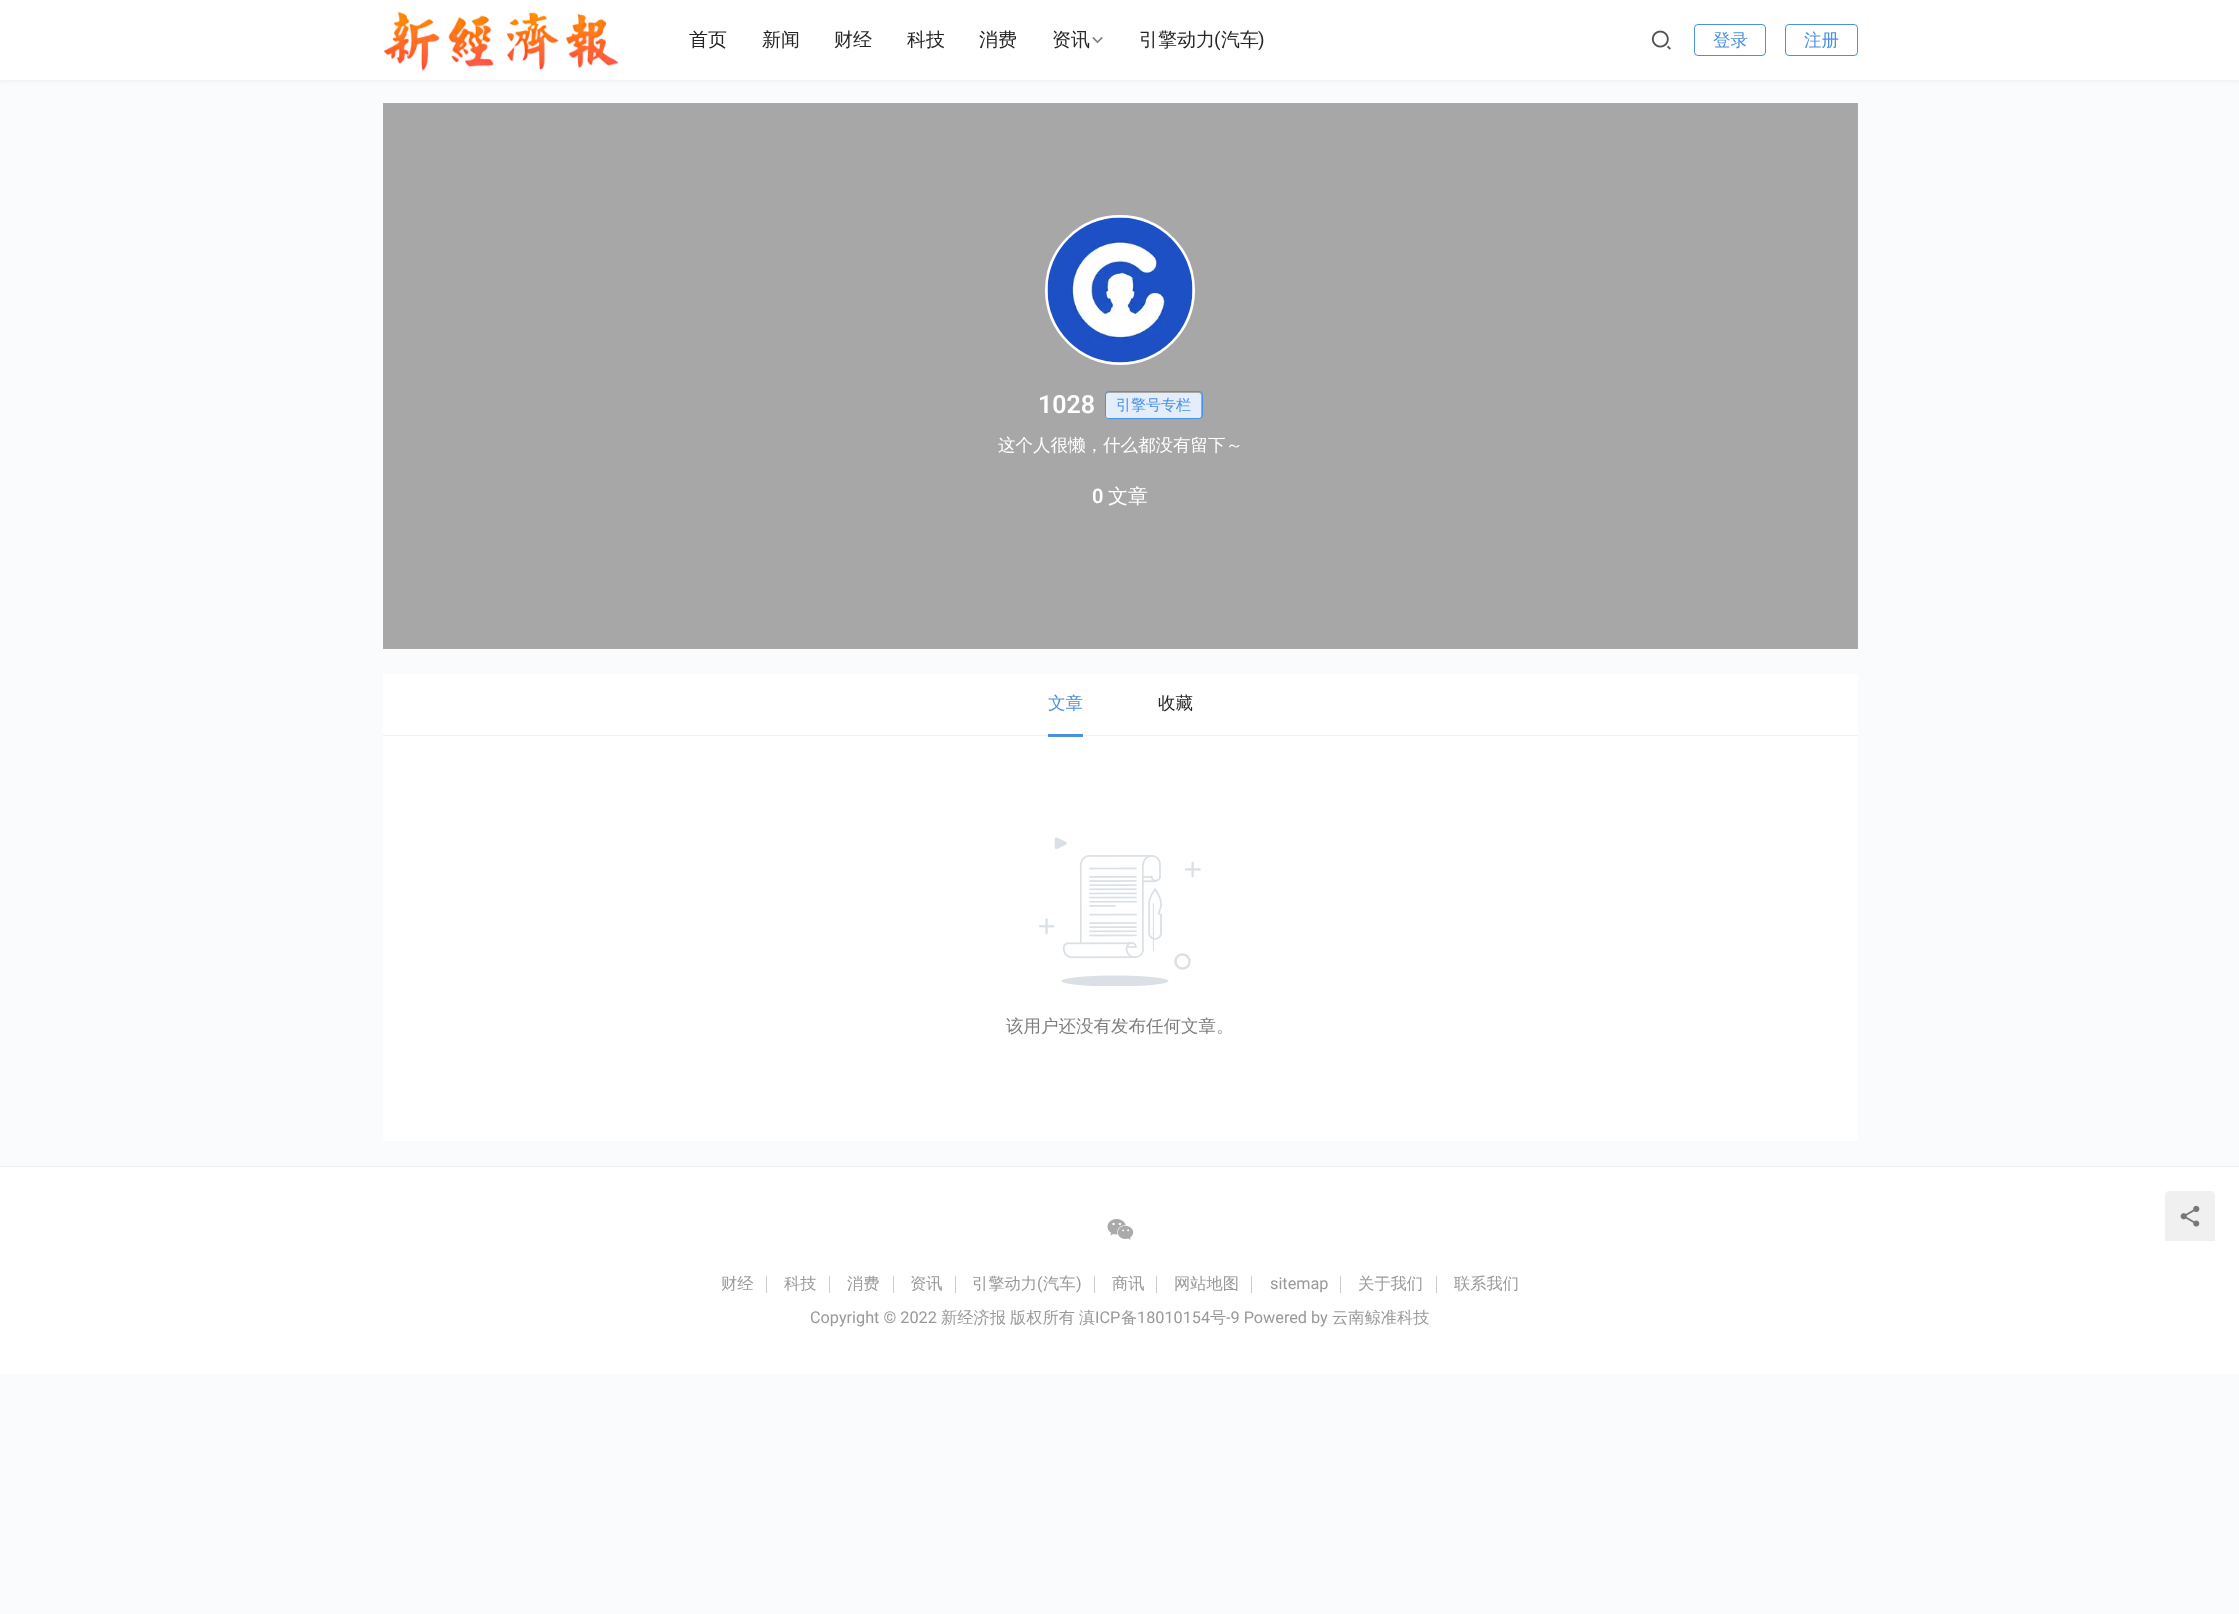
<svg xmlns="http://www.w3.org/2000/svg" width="2239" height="1614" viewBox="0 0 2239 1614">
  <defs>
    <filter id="blur1" x="-50%" y="-200%" width="200%" height="500%"><feGaussianBlur stdDeviation="2"/></filter>
  </defs>
  <rect width="100%" height="100%" fill="#fafbfc"/>
  <rect x="-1" y="-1" width="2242" height="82" fill="#000000" fill-opacity="0.05" filter="url(#blur1)"/>
  <rect x="0" y="0" width="2239" height="80" fill="#ffffff"/>
  <image x="383" y="11" width="236" height="61" href="img1.png"/>
  <text x="689" y="46" font-family="WenQuanYi Zen Hei" font-size="19" font-weight="500" fill="#262626">首页</text>
  <text x="762" y="46" font-family="WenQuanYi Zen Hei" font-size="19" font-weight="500" fill="#262626">新闻</text>
  <text x="834" y="46" font-family="WenQuanYi Zen Hei" font-size="19" font-weight="500" fill="#262626">财经</text>
  <text x="907" y="46" font-family="WenQuanYi Zen Hei" font-size="19" font-weight="500" fill="#262626">科技</text>
  <text x="979" y="46" font-family="WenQuanYi Zen Hei" font-size="19" font-weight="500" fill="#262626">消费</text>
  <text x="1052" y="46" font-family="WenQuanYi Zen Hei" font-size="19" font-weight="500" fill="#262626">资讯</text>
  <image x="1092" y="37" width="11" height="7" href="img2.png"/>
  <text x="1139" y="46" font-family="WenQuanYi Zen Hei" font-size="19" font-weight="500" fill="#262626">引擎动力</text>
  <text x="1214" y="46" font-family="Roboto" font-size="19" fill="#262626">(</text>
  <text x="1221" y="46" font-family="WenQuanYi Zen Hei" font-size="19" font-weight="500" fill="#262626">汽车</text>
  <text x="1258" y="46" font-family="Roboto" font-size="19" fill="#262626">)</text>
  <image x="1651" y="30" width="20" height="20" href="img3.png"/>
  <rect x="1694.5" y="24.5" width="71" height="31" rx="3.5" fill="none" stroke="#4a90e2"/>
  <text x="1713" y="46" font-family="WenQuanYi Zen Hei" font-size="17.5" font-weight="500" fill="#4a90e2">登录</text>
  <rect x="1785.5" y="24.5" width="72" height="31" rx="3.5" fill="none" stroke="#4a90e2"/>
  <text x="1804" y="46" font-family="WenQuanYi Zen Hei" font-size="17.5" font-weight="500" fill="#4a90e2">注册</text>
  <rect x="1857" y="103" width="1" height="546" fill="#acacae"/>
  <rect x="383" y="103" width="1474" height="546" fill="#a7a7a7"/>
  <circle cx="1120" cy="290" r="73.5" fill="none" stroke="#ffffff" stroke-width="3"/>
  <circle cx="1120.5" cy="290.5" r="72.5" fill="#ffffff"/>
  <image x="1047" y="217" width="146" height="146" href="img4.png"/>
  <text x="1038" y="413" font-family="Roboto" font-size="25" font-weight="600" fill="#ffffff">1028</text>
  <rect x="1105.5" y="391.5" width="97" height="27" rx="3.5" fill="none" stroke="#4a90e2"/>
  <rect x="1106" y="393" width="95" height="25" rx="2.5" fill="#ffffff"/>
  <text x="1116" y="410" font-family="WenQuanYi Zen Hei" font-size="15" font-weight="500" fill="#4a90e2">引擎号专栏</text>
  <rect x="1106" y="393" width="95" height="25" rx="2.5" fill="#4a90e2" fill-opacity="0.15"/>
  <text x="998" y="451" font-family="WenQuanYi Zen Hei" font-size="17.5" font-weight="500" fill="#ffffff">这个人很懒，什么都没有留下～</text>
  <text x="1092" y="503" font-family="Roboto" font-size="20" font-weight="600" fill="#ffffff">0</text>
  <text x="1108" y="503" font-family="WenQuanYi Zen Hei" font-size="20" font-weight="500" fill="#ffffff">文章</text>
  <rect x="383" y="674" width="1475" height="61" fill="#ffffff"/>
  <rect x="383" y="735" width="1475" height="1" fill="#f0f0f0"/>
  <rect x="383" y="736" width="1475" height="405" fill="#ffffff"/>
  <rect x="1048" y="734" width="35" height="3" fill="#4a90e2"/>
  <text x="1048" y="709" font-family="WenQuanYi Zen Hei" font-size="17.5" font-weight="500" fill="#4a90e2">文章</text>
  <text x="1158" y="709" font-family="WenQuanYi Zen Hei" font-size="17.5" font-weight="500" fill="#262626">收藏</text>
  <image x="1039" y="837" width="162" height="149" href="img5.png"/>
  <text x="1006" y="1032" font-family="WenQuanYi Zen Hei" font-size="17.5" font-weight="500" fill="#7d7d7d">该用户还没有发布任何文章。</text>
  <rect x="0" y="1167" width="2239" height="207" fill="#ffffff"/>
  <path d="M2169 1191H2211C2213 1191 2215 1193 2215 1195V1241H2165V1195C2165 1193 2167 1191 2169 1191Z" fill="#f0f0f0"/>
  <image x="2180" y="1205" width="20" height="22" href="img6.png"/>
  <rect x="0" y="1166" width="2239" height="1" fill="#eeeeee"/>
  <image x="1107" y="1219" width="27" height="21" href="img7.png"/>
  <rect x="766" y="1276" width="1" height="17" fill="#cccccc"/>
  <text x="721" y="1289" font-family="WenQuanYi Zen Hei" font-size="16.25" font-weight="500" fill="#999999">财经</text>
  <rect x="829" y="1276" width="1" height="17" fill="#cccccc"/>
  <text x="784" y="1289" font-family="WenQuanYi Zen Hei" font-size="16.25" font-weight="500" fill="#999999">科技</text>
  <rect x="893" y="1276" width="1" height="17" fill="#cccccc"/>
  <text x="847" y="1289" font-family="WenQuanYi Zen Hei" font-size="16.25" font-weight="500" fill="#999999">消费</text>
  <rect x="955" y="1276" width="1" height="17" fill="#cccccc"/>
  <text x="910" y="1289" font-family="WenQuanYi Zen Hei" font-size="16.25" font-weight="500" fill="#999999">资讯</text>
  <rect x="1094" y="1276" width="1" height="17" fill="#cccccc"/>
  <text x="972" y="1289" font-family="WenQuanYi Zen Hei" font-size="16.25" font-weight="500" fill="#999999">引擎动力</text>
  <text x="1037" y="1289" font-family="Roboto" font-size="16.25" fill="#999999">(</text>
  <text x="1043" y="1289" font-family="WenQuanYi Zen Hei" font-size="16.25" font-weight="500" fill="#999999">汽车</text>
  <text x="1076" y="1289" font-family="Roboto" font-size="16.25" fill="#999999">)</text>
  <rect x="1156" y="1276" width="1" height="17" fill="#cccccc"/>
  <text x="1112" y="1289" font-family="WenQuanYi Zen Hei" font-size="16.25" font-weight="500" fill="#999999">商讯</text>
  <rect x="1251" y="1276" width="1" height="17" fill="#cccccc"/>
  <text x="1174" y="1289" font-family="WenQuanYi Zen Hei" font-size="16.25" font-weight="500" fill="#999999">网站地图</text>
  <rect x="1340" y="1276" width="1" height="17" fill="#cccccc"/>
  <text x="1270" y="1289" font-family="Roboto" font-size="16.25" fill="#999999">sitemap</text>
  <rect x="1436" y="1276" width="1" height="17" fill="#cccccc"/>
  <text x="1358" y="1289" font-family="WenQuanYi Zen Hei" font-size="16.25" font-weight="500" fill="#999999">关于我们</text>
  <text x="1454" y="1289" font-family="WenQuanYi Zen Hei" font-size="16.25" font-weight="500" fill="#999999">联系我们</text>
  <text x="810" y="1323" font-family="Roboto" font-size="16.25" fill="#999999">Copyright © 2022</text>
  <text x="941" y="1323" font-family="WenQuanYi Zen Hei" font-size="16.25" font-weight="500" fill="#999999">新经济报</text>
  <text x="1010" y="1323" font-family="WenQuanYi Zen Hei" font-size="16.25" font-weight="500" fill="#999999">版权所有</text>
  <text x="1079" y="1323" font-family="WenQuanYi Zen Hei" font-size="16.25" font-weight="500" fill="#999999">滇</text>
  <text x="1095" y="1323" font-family="Roboto" font-size="16.25" fill="#999999">ICP</text>
  <text x="1121" y="1323" font-family="WenQuanYi Zen Hei" font-size="16.25" font-weight="500" fill="#999999">备</text>
  <text x="1137" y="1323" font-family="Roboto" font-size="16.25" fill="#999999">18010154</text>
  <text x="1210" y="1323" font-family="WenQuanYi Zen Hei" font-size="16.25" font-weight="500" fill="#999999">号</text>
  <text x="1226" y="1323" font-family="Roboto" font-size="16.25" fill="#999999">-9 Powered by</text>
  <text x="1332" y="1323" font-family="WenQuanYi Zen Hei" font-size="16.25" font-weight="500" fill="#999999">云南鲸准科技</text>
</svg>
